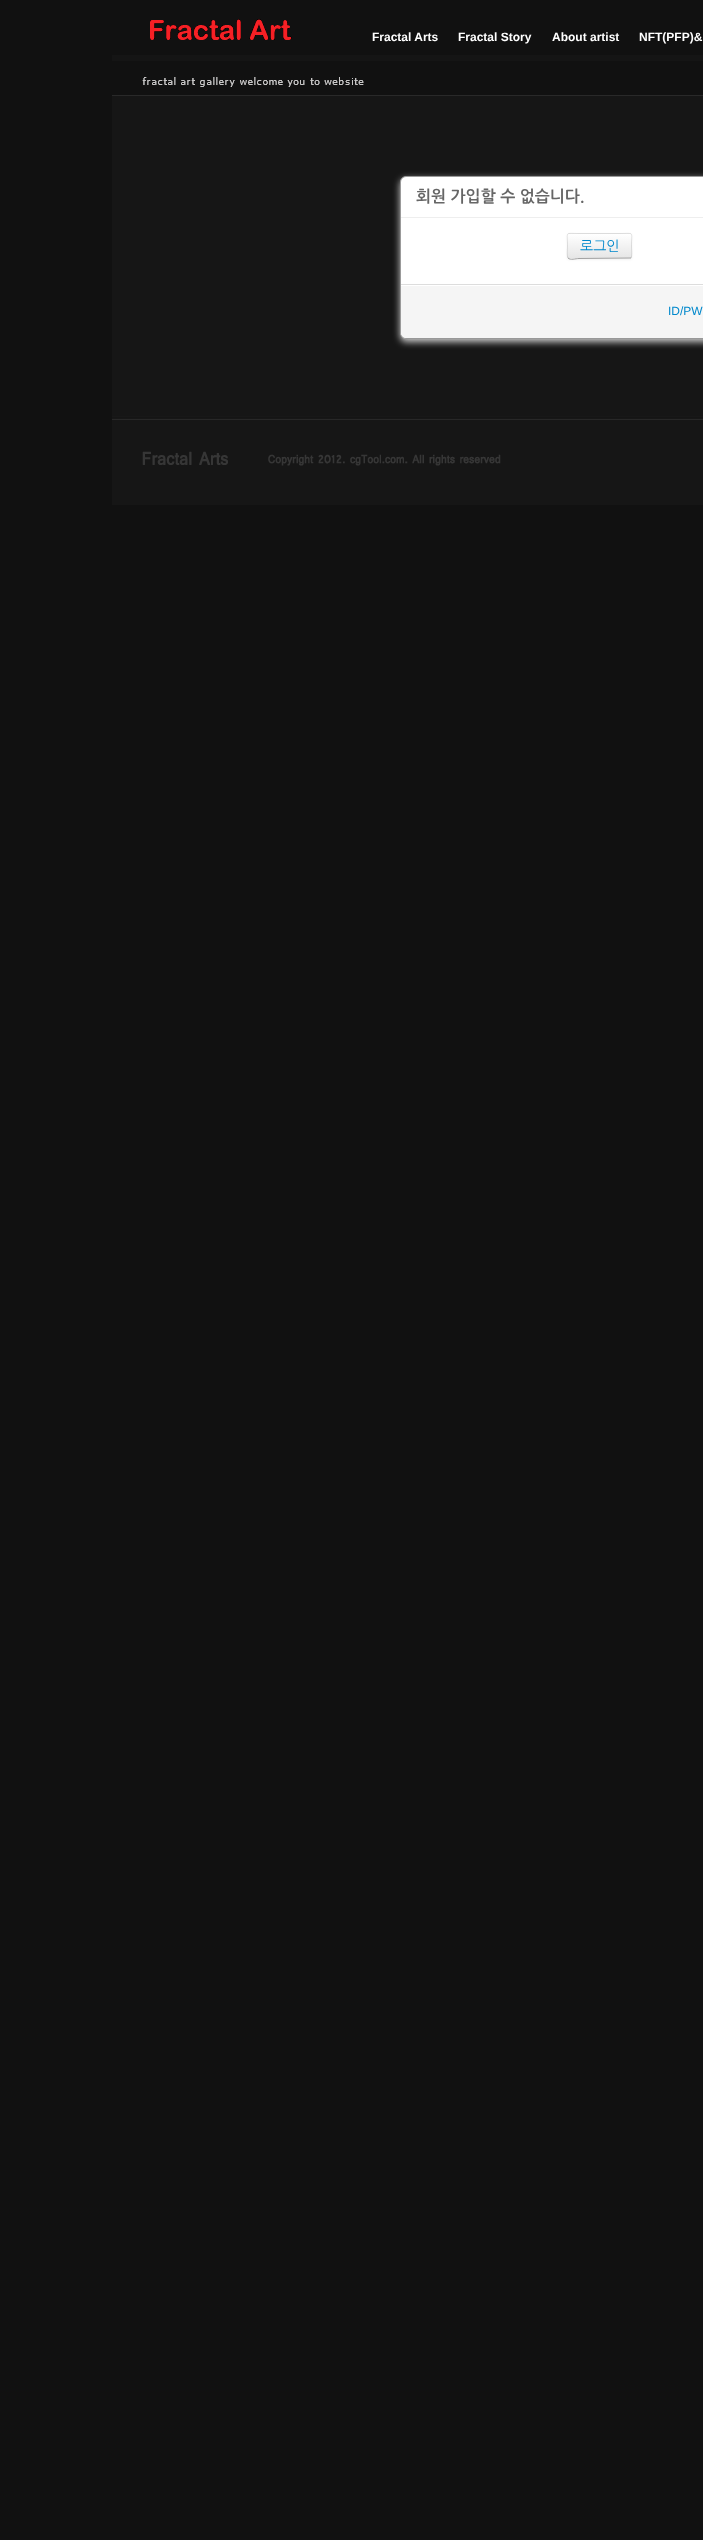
<svg xmlns="http://www.w3.org/2000/svg" width="703" height="2540" viewBox="0 0 703 2540">
  <defs>
    <filter id="blur1" x="-50%" y="-200%" width="200%" height="500%"><feGaussianBlur stdDeviation="3.5"/></filter>
    <filter id="blur2" x="-50%" y="-200%" width="200%" height="500%"><feGaussianBlur stdDeviation="1"/></filter>
    <clipPath id="clip1"><rect x="567" y="233" width="65" height="26" rx="2"/></clipPath>
    <linearGradient id="g1" gradientUnits="userSpaceOnUse" x1="600" y1="234" x2="600" y2="258"><stop offset="0" stop-color="#ffffff"/><stop offset="1" stop-color="#e6e6e6"/></linearGradient>
  </defs>
  <rect width="100%" height="100%" fill="#111111"/>
  <rect x="112" y="55" width="591" height="6" fill="#151515"/>
  <image x="150" y="19" width="142" height="21" href="img1.png"/>
  <text x="372" y="41" font-family="Liberation Sans" font-size="12" font-weight="bold" fill="#ffffff">Fractal Arts</text>
  <text x="458" y="41" font-family="Liberation Sans" font-size="12" font-weight="bold" fill="#ffffff">Fractal Story</text>
  <text x="552" y="41" font-family="Liberation Sans" font-size="12" font-weight="bold" fill="#ffffff">About artist</text>
  <text x="639" y="41" font-family="Liberation Sans" font-size="12" font-weight="bold" fill="#ffffff">NFT(PFP)&amp;</text>
  <image x="142" y="77" width="222" height="10" href="img2.png"/>
  <image x="112" y="95" width="591" height="1" href="img3.png"/>
  <rect x="112" y="96" width="591" height="293" fill="#161616"/>
  <rect x="400" y="179" width="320" height="163" rx="6" fill="#cccccc" filter="url(#blur1)"/>
  <rect x="400.5" y="176.5" width="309" height="162" rx="5.5" fill="#ffffff" stroke="#999999"/>
  <rect x="401" y="217" width="302" height="1" fill="#eeeeee"/>
  <text x="416" y="202" font-family="NanumGothic" font-size="16" font-weight="bold" fill="#666666">회원 가입할 수 없습니다.</text>
  <rect x="567" y="234" width="65" height="26" rx="2" fill="#000000" fill-opacity="0.05" filter="url(#blur2)"/>
  <rect x="567" y="233" width="65" height="26" rx="2" fill="#f5f5f5"/>
  <g clip-path="url(#clip1)">
    <rect x="567" y="234" width="65" height="24" fill="url(#g1)"/>
  </g>
  <path d="M631 258L579 258.5C575.5 258.5 570.5 260.5 568 258" fill="none" stroke="#a2a2a2"/>
  <path d="M568 258C566.5 256.5 567.5 248 567.5 246C567.5 231 564.5 233.5 579 233.5H620C634.5 233.5 631.5 231 631.5 246C631.5 248 632.5 256.5 631 258" fill="none" stroke="#000000" stroke-opacity="0.1"/>
  <text x="580" y="251" font-family="NanumGothic" font-size="14" fill="#0088cc">로그인</text>
  <path d="M401 284H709V332C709 335.5 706.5 338 703 338H407C403.5 338 401 335.5 401 332Z" fill="#f5f5f5"/>
  <rect x="401" y="285" width="302" height="1" fill="#ffffff"/>
  <rect x="401" y="284" width="302" height="1" fill="#dddddd"/>
  <text x="668" y="315" font-family="Liberation Sans" font-size="12" fill="#0088cc">ID/PW</text>
  <image x="112" y="389" width="591" height="116" href="img4.png"/>
  <image x="142" y="451" width="359" height="15" href="img5.png"/>
</svg>
